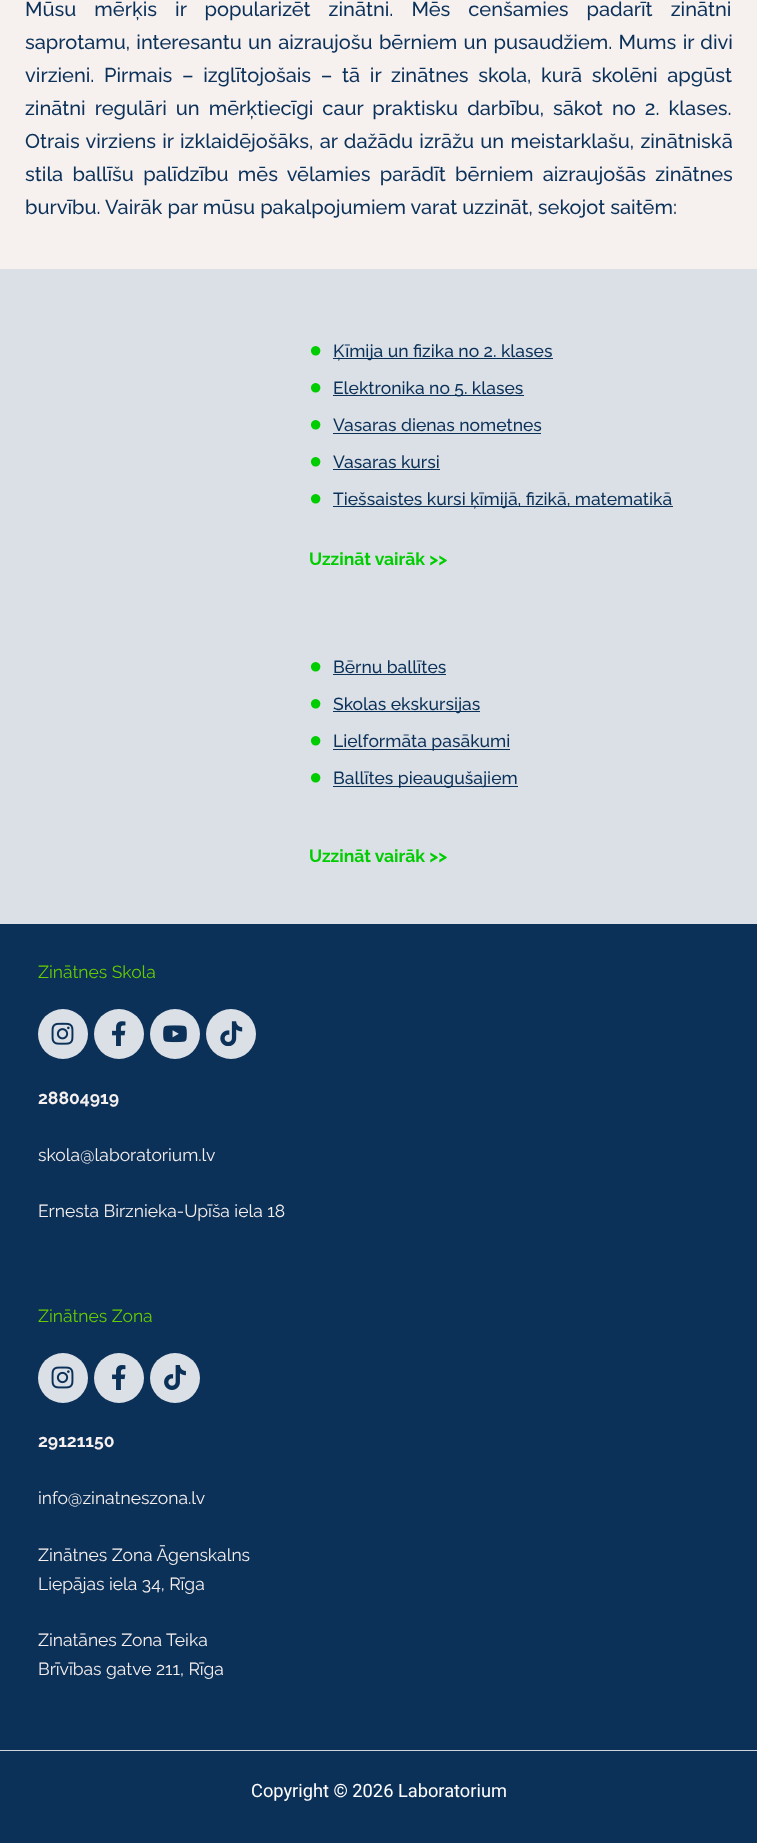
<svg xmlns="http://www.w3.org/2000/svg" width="757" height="1843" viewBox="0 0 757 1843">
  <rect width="100%" height="100%" fill="#0c3159"/>
  <rect x="0" y="0" width="757" height="269" fill="#f6f0ef"/>
  <text x="25" y="16" word-spacing="13" font-family="Raleway" font-size="20" font-weight="500" fill="#0c3159">Mūsu mērķis ir popularizēt zinātni. Mēs cenšamies padarīt zinātni</text>
  <text x="25" y="49" word-spacing="1.25" font-family="Raleway" font-size="20" font-weight="500" fill="#0c3159">saprotamu, interesantu un aizraujošu bērniem un pusaudžiem. Mums ir divi</text>
  <text x="25" y="82" word-spacing="4.6" font-family="Raleway" font-size="20" font-weight="500" fill="#0c3159">virzieni. Pirmais – izglītojošais – tā ir zinātnes skola, kurā skolēni apgūst</text>
  <text x="25" y="115" word-spacing="4" font-family="Raleway" font-size="20" font-weight="500" fill="#0c3159">zinātni regulāri un mērķtiecīgi caur praktisku darbību, sākot no 2. klases.</text>
  <text x="25" y="148" word-spacing="1.25" font-family="Raleway" font-size="20" font-weight="500" fill="#0c3159">Otrais virziens ir izklaidējošāks, ar dažādu izrāžu un meistarklašu, zinātniskā</text>
  <text x="25" y="181" word-spacing="4.25" font-family="Raleway" font-size="20" font-weight="500" fill="#0c3159">stila ballīšu palīdzību mēs vēlamies parādīt bērniem aizraujošās zinātnes</text>
  <text x="25" y="214" font-family="Raleway" font-size="20" font-weight="500" fill="#0c3159">burvību. Vairāk par mūsu pakalpojumiem varat uzzināt, sekojot saitēm:</text>
  <rect x="0" y="269" width="757" height="655" fill="#dbe0e6"/>
  <text x="309" y="357" font-family="Liberation Sans" font-size="22" fill="#00cd00">●</text>
  <rect x="333" y="358" width="220" height="1" fill="#0c3159"/>
  <text x="333" y="357" font-family="Raleway" font-size="17.5" font-weight="500" fill="#0c3159">Ķīmija un fizika no 2. klases</text>
  <text x="309" y="394" font-family="Liberation Sans" font-size="22" fill="#00cd00">●</text>
  <rect x="333" y="395" width="191" height="1" fill="#0c3159"/>
  <text x="333" y="394" font-family="Raleway" font-size="17.5" font-weight="500" fill="#0c3159">Elektronika no 5. klases</text>
  <text x="309" y="431" font-family="Liberation Sans" font-size="22" fill="#00cd00">●</text>
  <text x="333" y="431" font-family="Raleway" font-size="17.5" font-weight="500" fill="#0c3159">Vasaras dienas nometnes</text>
  <rect x="333" y="433" width="208" height="1" fill="#0c3159"/>
  <text x="309" y="468" font-family="Liberation Sans" font-size="22" fill="#00cd00">●</text>
  <text x="333" y="468" font-family="Raleway" font-size="17.5" font-weight="500" fill="#0c3159">Vasaras kursi</text>
  <rect x="333" y="469" width="107" height="1" fill="#0c3159"/>
  <text x="309" y="505" font-family="Liberation Sans" font-size="22" fill="#00cd00">●</text>
  <rect x="333" y="506" width="340" height="1" fill="#0c3159"/>
  <text x="333" y="505" font-family="Raleway" font-size="17.5" font-weight="500" fill="#0c3159">Tiešsaistes kursi ķīmijā, fizikā, matematikā</text>
  <text x="309" y="565" font-family="Raleway" font-size="17.5" font-weight="bold" fill="#00cd00">Uzzināt vairāk &gt;&gt;</text>
  <text x="309" y="673" font-family="Liberation Sans" font-size="22" fill="#00cd00">●</text>
  <text x="333" y="673" font-family="Raleway" font-size="17.5" font-weight="500" fill="#0c3159">Bērnu ballītes</text>
  <rect x="333" y="674" width="113" height="1" fill="#0c3159"/>
  <text x="309" y="710" font-family="Liberation Sans" font-size="22" fill="#00cd00">●</text>
  <rect x="333" y="711" width="147" height="1" fill="#0c3159"/>
  <text x="333" y="710" font-family="Raleway" font-size="17.5" font-weight="500" fill="#0c3159">Skolas ekskursijas</text>
  <text x="309" y="747" font-family="Liberation Sans" font-size="22" fill="#00cd00">●</text>
  <rect x="333" y="749" width="177" height="1" fill="#0c3159"/>
  <text x="333" y="747" font-family="Raleway" font-size="17.5" font-weight="500" fill="#0c3159">Lielformāta pasākumi</text>
  <text x="309" y="784" font-family="Liberation Sans" font-size="22" fill="#00cd00">●</text>
  <rect x="333" y="786" width="185" height="1" fill="#0c3159"/>
  <text x="333" y="784" font-family="Raleway" font-size="17.5" font-weight="500" fill="#0c3159">Ballītes pieaugušajiem</text>
  <text x="309" y="862" font-family="Raleway" font-size="17.5" font-weight="bold" fill="#00cd00">Uzzināt vairāk &gt;&gt;</text>
  <text x="38" y="978" font-family="Raleway" font-size="17.5" fill="#66cc00">Zinātnes Skola</text>
  <circle cx="63" cy="1034" r="25" fill="#dbe0e6"/>
  <image x="51" y="1022" width="23" height="23" href="img1.png"/>
  <circle cx="119" cy="1034" r="25" fill="#dbe0e6"/>
  <image x="112" y="1021" width="14" height="25" href="img2.png"/>
  <circle cx="175" cy="1034" r="25" fill="#dbe0e6"/>
  <image x="163" y="1025" width="24" height="18" href="img3.png"/>
  <circle cx="231" cy="1034" r="25" fill="#dbe0e6"/>
  <image x="220" y="1021" width="23" height="25" href="img4.png"/>
  <text x="38" y="1104" font-family="Raleway" font-size="17.5" font-weight="bold" fill="#f6f0ef">28804919</text>
  <text x="38" y="1161" font-family="Raleway" font-size="17.5" fill="#f6f0ef">skola@laboratorium.lv</text>
  <text x="38" y="1217" font-family="Raleway" font-size="17.5" fill="#f6f0ef">Ernesta Birznieka-Upīša iela 18</text>
  <text x="38" y="1322" font-family="Raleway" font-size="17.5" fill="#66cc00">Zinātnes Zona</text>
  <circle cx="63" cy="1378" r="25" fill="#dbe0e6"/>
  <image x="51" y="1366" width="23" height="23" href="img5.png"/>
  <circle cx="119" cy="1378" r="25" fill="#dbe0e6"/>
  <image x="112" y="1365" width="14" height="25" href="img6.png"/>
  <circle cx="175" cy="1378" r="25" fill="#dbe0e6"/>
  <image x="164" y="1365" width="22" height="25" href="img7.png"/>
  <text x="38" y="1447" font-family="Raleway" font-size="17.5" font-weight="bold" fill="#f6f0ef">29121150</text>
  <text x="38" y="1504" font-family="Raleway" font-size="17.5" fill="#f6f0ef">info@zinatneszona.lv</text>
  <text x="38" y="1561" font-family="Raleway" font-size="17.5" fill="#f6f0ef">Zinātnes Zona Āgenskalns</text>
  <text x="38" y="1590" font-family="Raleway" font-size="17.5" fill="#f6f0ef">Liepājas iela 34, Rīga</text>
  <text x="38" y="1646" font-family="Raleway" font-size="17.5" fill="#f6f0ef">Zinatānes Zona Teika</text>
  <text x="38" y="1675" font-family="Raleway" font-size="17.5" fill="#f6f0ef">Brīvības gatve 211, Rīga</text>
  <rect x="0" y="1750" width="757" height="1" fill="#d1d5db"/>
  <text x="251" y="1797" font-family="Roboto" font-size="18.25" fill="#ffffff">Copyright © 2026 Laboratorium</text>
</svg>
